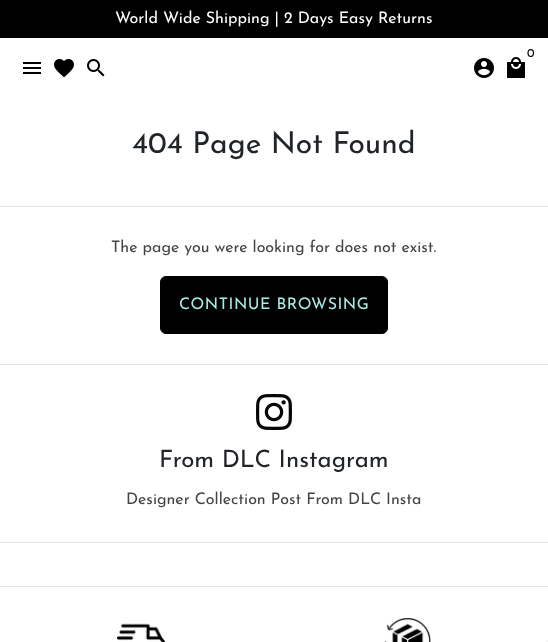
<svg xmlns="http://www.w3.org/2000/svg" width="548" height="642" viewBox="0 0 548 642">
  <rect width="100%" height="100%" fill="#ffffff"/>
  <rect x="0" y="0" width="548" height="38" fill="#000000"/>
  <text x="115" y="23" font-family="Josefin Sans" font-size="16" fill="#ffffff">World Wide Shipping | 2 Days Easy Returns</text>
  <text x="527" y="57" font-family="Josefin Sans" font-size="12" fill="#000000">0</text>
  <image x="507" y="57" width="18" height="21" href="img1.png"/>
  <image x="474" y="58" width="20" height="20" href="img2.png"/>
  <image x="23" y="62" width="18" height="12" href="img3.png"/>
  <image x="54" y="59" width="20" height="19" href="img4.png"/>
  <image x="87" y="59" width="18" height="18" href="img5.png"/>
  <text x="132" y="153" font-family="Josefin Sans" font-size="30" fill="#212529">404 Page Not Found</text>
  <rect x="0" y="206" width="548" height="1" fill="#e5e5e5"/>
  <text x="111" y="252" font-family="Josefin Sans" font-size="16" fill="#444444">The page you were looking for does not exist.</text>
  <rect x="160.5" y="276.5" width="227" height="57" rx="5.5" fill="#000000" stroke="#000000"/>
  <text x="179" y="309" font-family="Josefin Sans" font-size="16" letter-spacing="0.5" fill="#a8ece6">CONTINUE BROWSING</text>
  <rect x="0" y="364" width="548" height="1" fill="#e5e5e5"/>
  <image x="256" y="394" width="36" height="36" href="img6.png"/>
  <text x="159" y="467" font-family="Josefin Sans" font-size="24" fill="#212529">From DLC Instagram</text>
  <text x="126" y="504" font-family="Josefin Sans" font-size="16" fill="#444444">Designer Collection Post From DLC Insta</text>
  <rect x="0" y="542" width="548" height="1" fill="#e5e5e5"/>
  <rect x="0" y="586" width="548" height="1" fill="#e5e5e5"/>
  <image x="117" y="623" width="48" height="19" href="img7.png"/>
  <image x="384" y="618" width="47" height="24" href="img8.png"/>
  <rect x="546" y="640" width="2" height="2" fill="#f5f5f5"/>
</svg>
